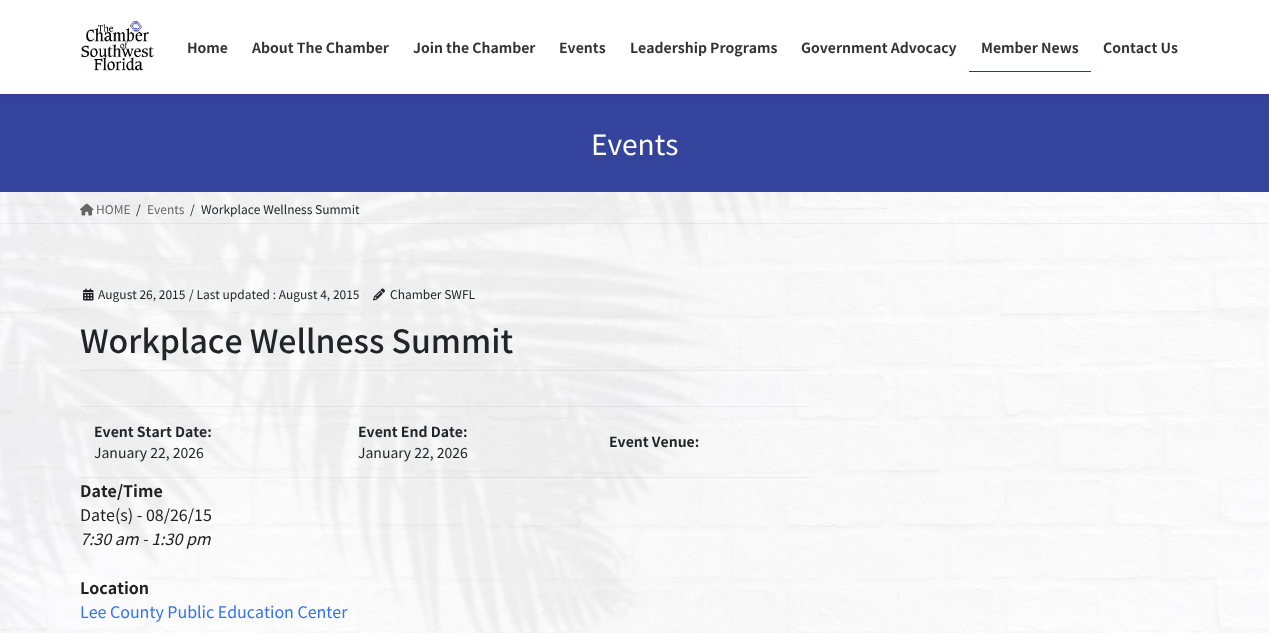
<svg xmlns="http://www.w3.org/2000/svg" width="1269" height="633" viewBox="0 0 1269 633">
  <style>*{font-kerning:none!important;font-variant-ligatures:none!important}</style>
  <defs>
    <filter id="blur1" x="-50%" y="-200%" width="200%" height="500%"><feGaussianBlur stdDeviation="1.5"/></filter>
  </defs>
  <rect width="100%" height="100%" fill="#ffffff"/>
  <image x="0" y="192" width="1269" height="441" href="img1.png"/>
  <rect x="0" y="94" width="1269" height="98" fill="#34439b"/>
  <rect x="0" y="1" width="1269" height="94" fill="#000000" fill-opacity="0.1" filter="url(#blur1)"/>
  <rect x="0" y="0" width="1269" height="94" fill="#ffffff"/>
  <image x="81" y="21" width="73" height="50" href="img2.png"/>
  <text x="187" y="53" font-family="Noto Sans JP" font-size="14" font-weight="bold" fill="#333333">Home</text>
  <text x="252" y="53" font-family="Noto Sans JP" font-size="14" font-weight="bold" fill="#333333">About The Chamber</text>
  <text x="413" y="53" font-family="Noto Sans JP" font-size="14" font-weight="bold" fill="#333333">Join the Chamber</text>
  <text x="559" y="53" font-family="Noto Sans JP" font-size="14" font-weight="bold" fill="#333333">Events</text>
  <text x="630" y="53" font-family="Noto Sans JP" font-size="14" font-weight="bold" fill="#333333">Leadership Programs</text>
  <text x="801" y="53" font-family="Noto Sans JP" font-size="14" font-weight="bold" fill="#333333">Government Advocacy</text>
  <text x="981" y="53" font-family="Noto Sans JP" font-size="14" font-weight="bold" fill="#333333">Member News</text>
  <rect x="969" y="71" width="122" height="1" fill="#2c3984"/>
  <text x="1103" y="53" font-family="Noto Sans JP" font-size="14" font-weight="bold" fill="#333333">Contact Us</text>
  <text x="591" y="155" font-family="Noto Sans JP" font-size="28" fill="#ffffff">Events</text>
  <rect x="0" y="223" width="1269" height="1" fill="#000000" fill-opacity="0.05"/>
  <image x="80" y="203" width="14" height="13" href="img3.png"/>
  <text x="96" y="214" font-family="Noto Sans JP" font-size="12" fill="#666666">HOME</text>
  <text x="136" y="214" font-family="Noto Sans JP" font-size="12" fill="#212529">/</text>
  <text x="147" y="214" font-family="Noto Sans JP" font-size="12" fill="#666666">Events</text>
  <text x="190" y="214" font-family="Noto Sans JP" font-size="12" fill="#212529">/</text>
  <text x="201" y="214" font-family="Noto Sans JP" font-size="12" fill="#212529">Workplace Wellness Summit</text>
  <rect x="80" y="370" width="730" height="1" fill="#000000" fill-opacity="0.05"/>
  <image x="83" y="288" width="11" height="13" href="img4.png"/>
  <text x="98" y="299" font-family="Noto Sans JP" font-size="12" fill="#212529">August 26, 2015</text>
  <text x="189" y="299" font-family="Noto Sans JP" font-size="12" fill="#212529">/ Last updated : August 4, 2015</text>
  <image x="373" y="288" width="12" height="13" href="img5.png"/>
  <text x="390" y="299" font-family="Noto Sans JP" font-size="12" fill="#212529">Chamber SWFL</text>
  <text x="80" y="353" font-family="Noto Sans JP" font-size="32" font-weight="500" fill="#212529">Workplace Wellness Summit</text>
  <rect x="80" y="406" width="730" height="1" fill="#000000" fill-opacity="0.05"/>
  <rect x="594" y="477" width="216" height="1" fill="#000000" fill-opacity="0.05"/>
  <rect x="344" y="477" width="251" height="1" fill="#000000" fill-opacity="0.05"/>
  <rect x="79" y="477" width="266" height="1" fill="#000000" fill-opacity="0.05"/>
  <text x="94" y="437" font-family="Noto Sans JP" font-size="14" font-weight="bold" fill="#212529">Event Start Date:</text>
  <text x="94" y="458" font-family="Noto Sans JP" font-size="14" fill="#212529">January 22, 2026</text>
  <text x="358" y="437" font-family="Noto Sans JP" font-size="14" font-weight="bold" fill="#212529">Event End Date:</text>
  <text x="358" y="458" font-family="Noto Sans JP" font-size="14" fill="#212529">January 22, 2026</text>
  <text x="609" y="447" font-family="Noto Sans JP" font-size="14" font-weight="bold" fill="#212529">Event Venue:</text>
  <text x="80" y="497" font-family="Noto Sans JP" font-size="16" font-weight="bold" fill="#212121">Date/Time</text>
  <text x="80" y="521" font-family="Noto Sans JP" font-size="16" fill="#212121">Date(s) - 08/26/15</text>
  <text x="80" y="545" font-family="Noto Sans JP" font-size="16" font-style="italic" fill="#212121">7:30 am - 1:30 pm</text>
  <text x="80" y="594" font-family="Noto Sans JP" font-size="16" font-weight="bold" fill="#212121">Location</text>
  <text x="80" y="618" font-family="Noto Sans JP" font-size="16" fill="#3372f0">Lee County Public Education Center</text>
</svg>
